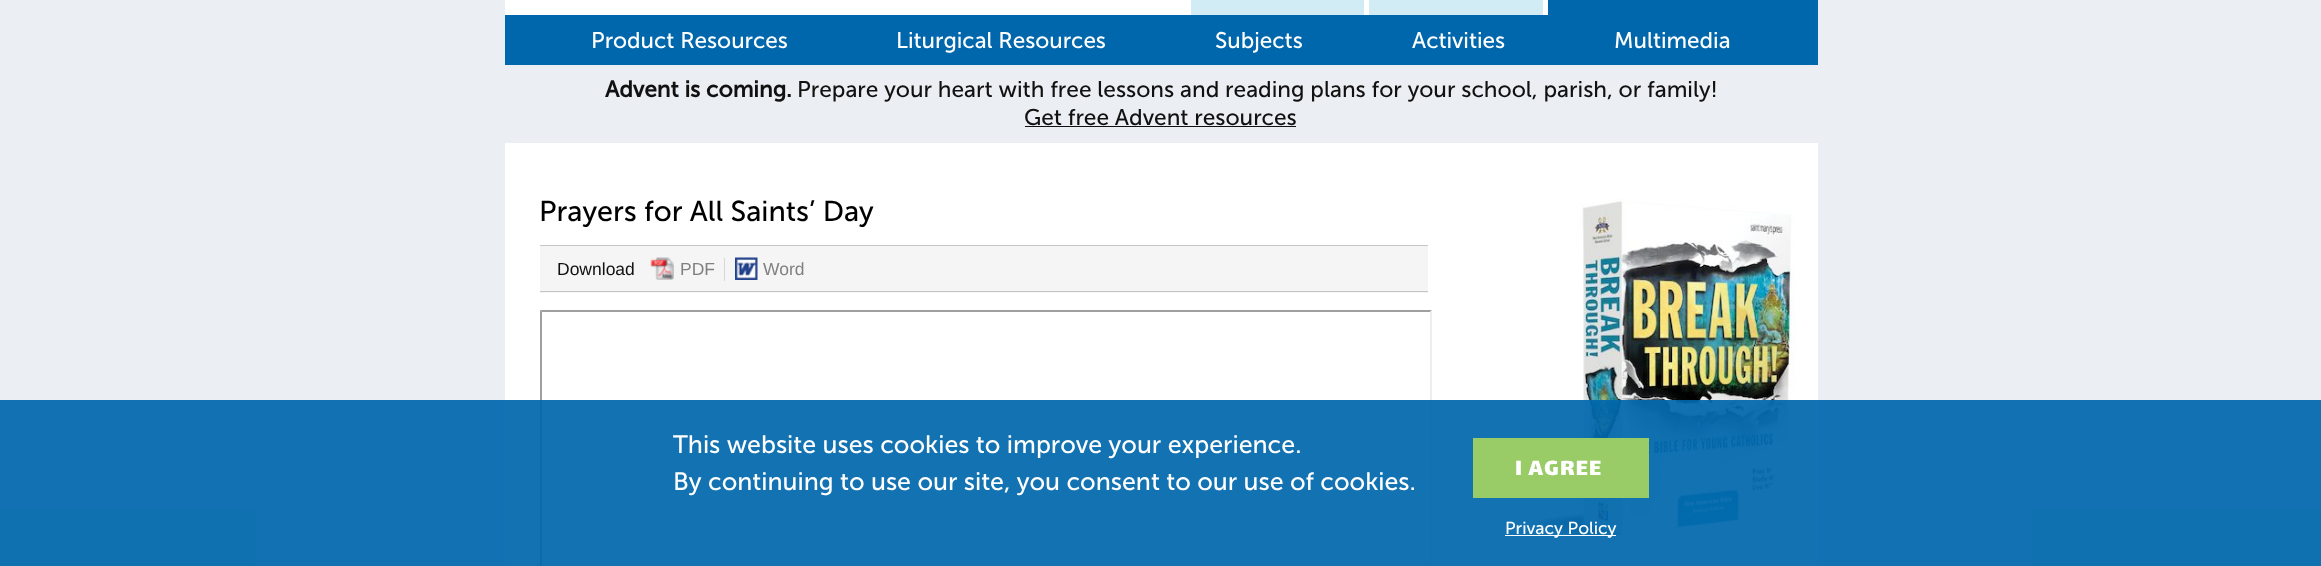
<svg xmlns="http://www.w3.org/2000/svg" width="2321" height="566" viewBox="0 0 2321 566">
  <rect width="100%" height="100%" fill="#ebeff3"/>
  <rect x="505" y="0" width="1313" height="566" fill="#ffffff"/>
  <rect x="1191" y="0" width="173" height="15" fill="#d2ecf5"/>
  <rect x="1369" y="0" width="174" height="15" fill="#d2ecf5"/>
  <rect x="1548" y="0" width="270" height="15" fill="#0067ac"/>
  <rect x="505" y="15" width="1313" height="50" fill="#0067ac"/>
  <text x="591" y="48" font-family="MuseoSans" font-size="22.5" fill="#ffffff">Product Resources</text>
  <text x="896" y="48" font-family="MuseoSans" font-size="22.5" fill="#ffffff">Liturgical Resources</text>
  <text x="1215" y="48" font-family="MuseoSans" font-size="22.5" fill="#ffffff">Subjects</text>
  <text x="1412" y="48" font-family="MuseoSans" font-size="22.5" fill="#ffffff">Activities</text>
  <text x="1614" y="48" font-family="MuseoSans" font-size="22.5" fill="#ffffff">Multimedia</text>
  <rect x="505" y="65" width="1313" height="78" fill="#ebeff3"/>
  <text x="605" y="97" font-family="MuseoSans" font-size="22.7" font-weight="bold" fill="#111111">Advent is coming.</text>
  <text x="797" y="97" font-family="MuseoSans" font-size="22.7" fill="#111111">Prepare your heart with free lessons and reading plans for your school, parish, or family!</text>
  <text x="1024" y="125" font-family="MuseoSans" font-size="22.7" fill="#111111">Get free Advent resources</text>
  <rect x="1025" y="126" width="271" height="1" fill="#111111"/>
  <text x="539" y="221" font-family="MuseoSans" font-size="28.75" fill="#000000">Prayers for All Saints’ Day</text>
  <rect x="540" y="246" width="888" height="47" fill="#f5f5f5"/>
  <rect x="540" y="245" width="888" height="1" fill="#c5c5c5"/>
  <rect x="540" y="291" width="888" height="1" fill="#c5c5c5"/>
  <text x="557" y="275" font-family="Liberation Sans" font-size="17.5" fill="#111111">Download</text>
  <rect x="724" y="258" width="1" height="23" fill="#d8d8da"/>
  <image x="650" y="257" width="24" height="23" href="img1.png"/>
  <text x="680" y="275" font-family="Liberation Sans" font-size="17.5" fill="#808080">PDF</text>
  <image x="735" y="257" width="23" height="23" href="img2.png"/>
  <text x="763" y="275" font-family="Liberation Sans" font-size="17.5" fill="#808080">Word</text>
  <path d="M540 310H1432L1430 312H542Z" fill="#9f9f9f"/>
  <path d="M540 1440V310L542 312V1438Z" fill="#9f9f9f"/>
  <path d="M1432 310V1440L1430 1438V312Z" fill="#eeeeee"/>
  <image x="1527" y="198" width="269" height="340" href="img3.png"/>
  <rect x="0" y="400" width="2321" height="166" fill="#0067ac" fill-opacity="0.93"/>
  <text x="673" y="453" font-family="MuseoSans" font-size="25" fill="#ffffff">This website uses cookies to improve your experience.</text>
  <text x="673" y="490" font-family="MuseoSans" font-size="25" fill="#ffffff">By continuing to use our site, you consent to our use of cookies.</text>
  <rect x="1473" y="438" width="176" height="60" fill="#99cb66"/>
  <text x="1515" y="475" font-family="Lalezar" font-size="25" letter-spacing="1.25" fill="#ffffff">I AGREE</text>
  <rect x="1505" y="535" width="111" height="1" fill="#ffffff"/>
  <text x="1505" y="534" font-family="MuseoSans" font-size="17.5" fill="#ffffff">Privacy Policy</text>
</svg>
